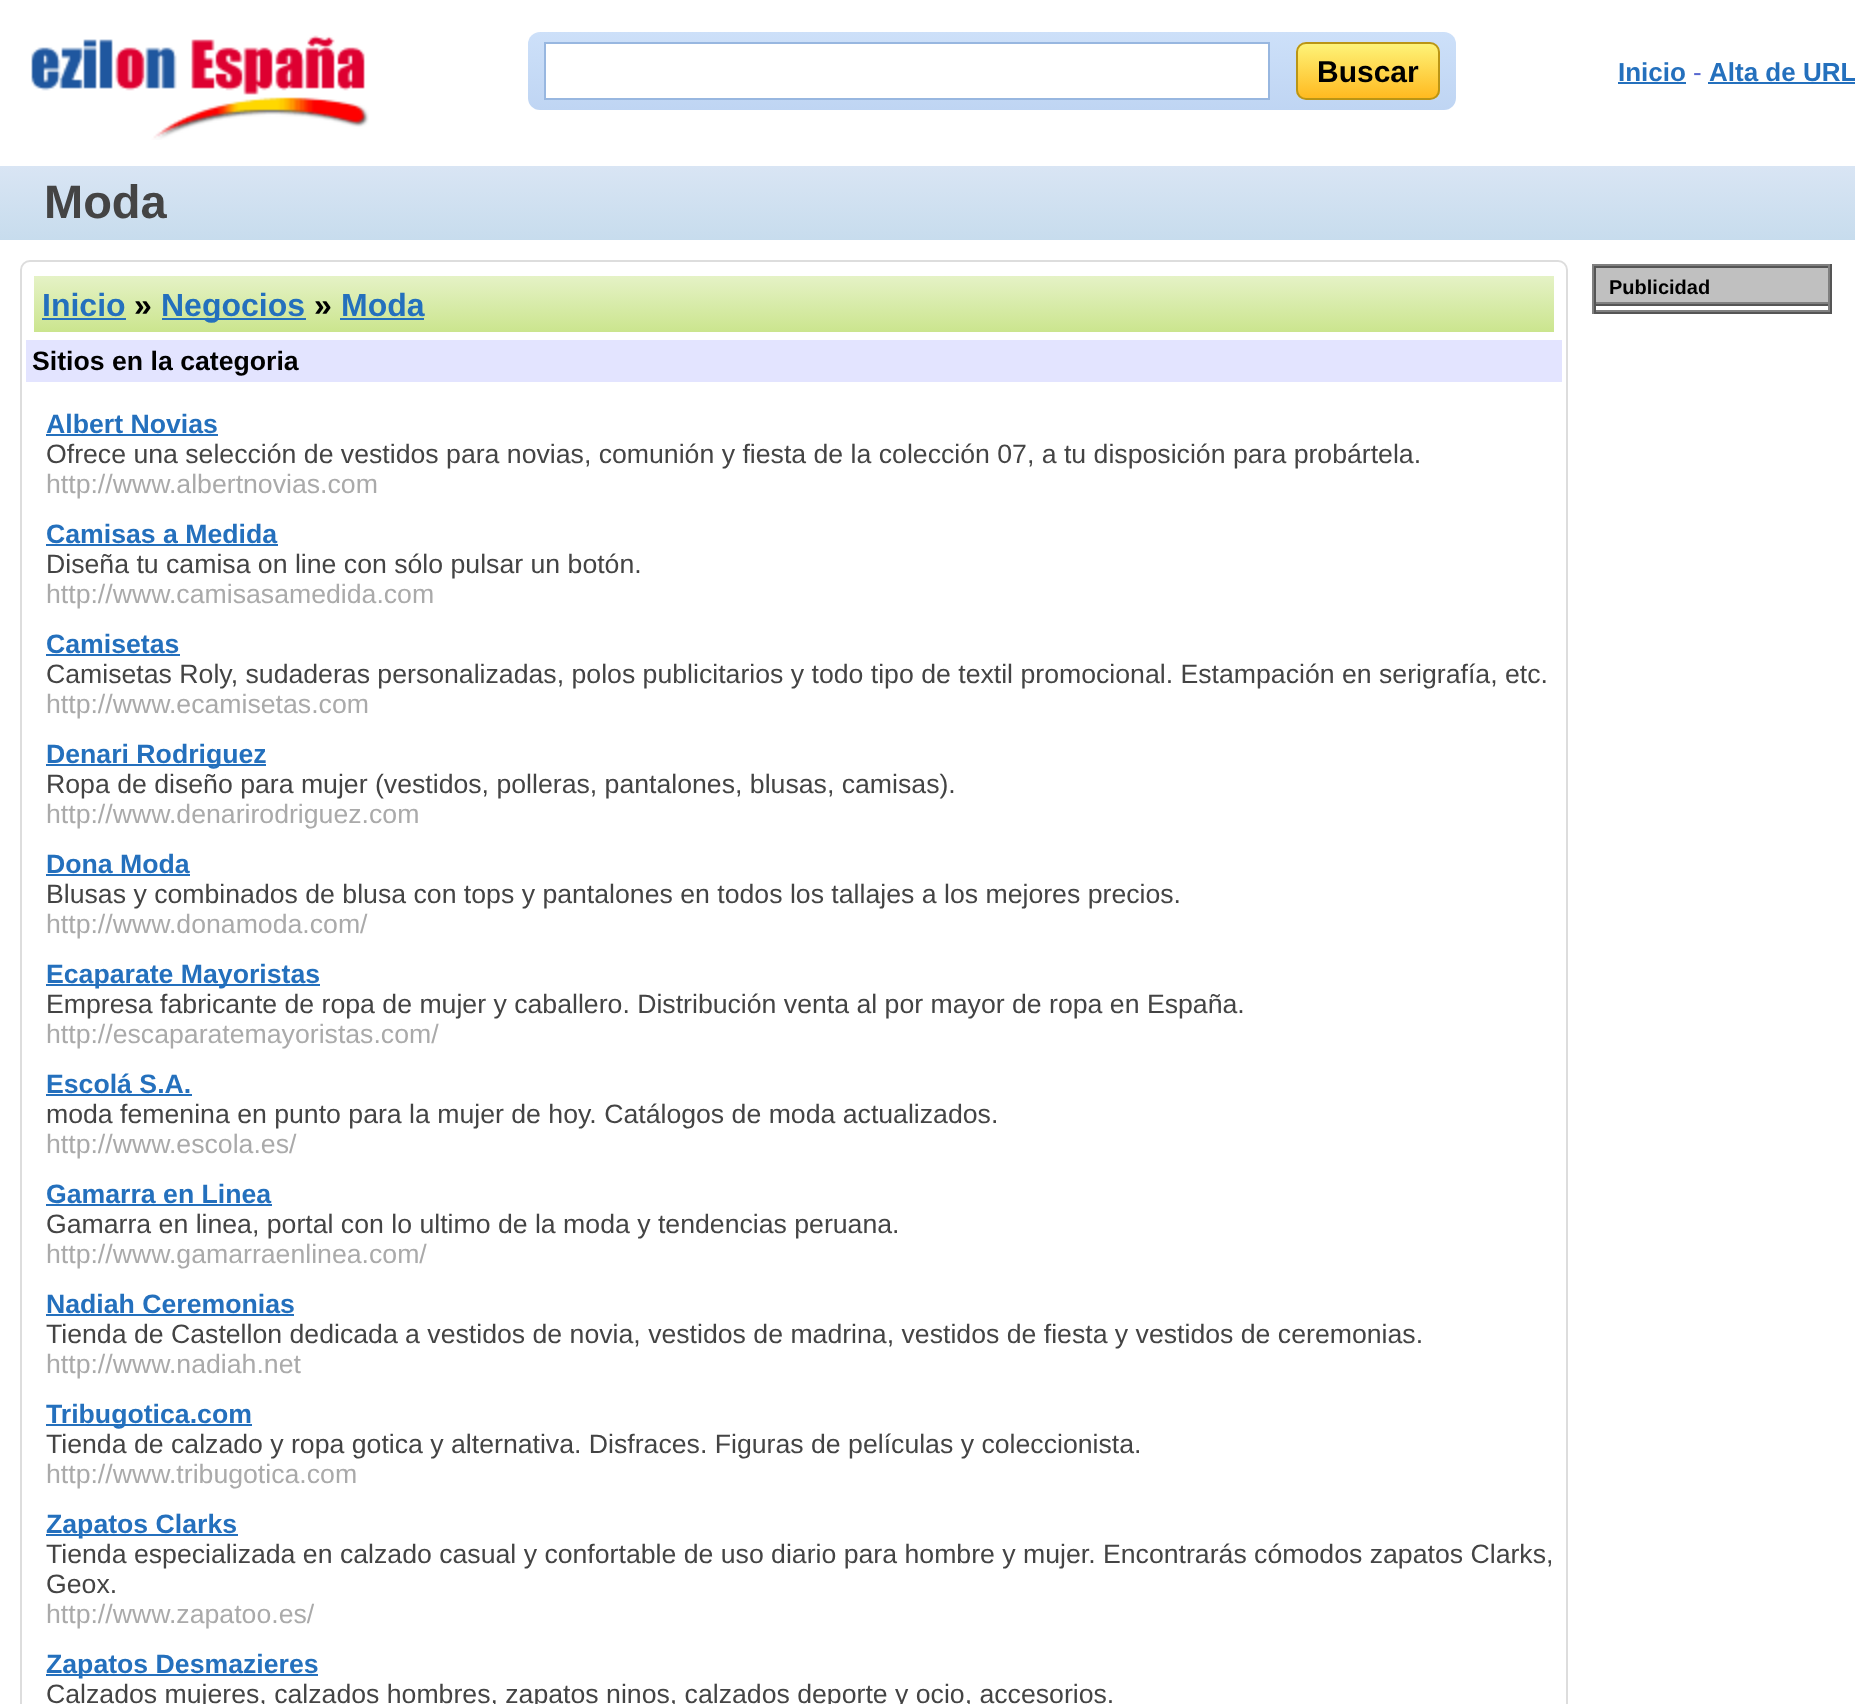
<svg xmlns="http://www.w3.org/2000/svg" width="1855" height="1704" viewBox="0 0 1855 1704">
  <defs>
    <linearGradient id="g1" gradientUnits="userSpaceOnUse" x1="992" y1="32" x2="992" y2="110"><stop offset="0" stop-color="#cde0f9"/><stop offset="1" stop-color="#bfd5f3"/></linearGradient>
    <clipPath id="clip1"><rect x="1296" y="42" width="144" height="58" rx="10"/></clipPath>
    <linearGradient id="g2" gradientUnits="userSpaceOnUse" x1="1368" y1="44" x2="1368" y2="98"><stop offset="0" stop-color="#fef378"/><stop offset="1" stop-color="#ffba20"/></linearGradient>
    <linearGradient id="g3" gradientUnits="userSpaceOnUse" x1="928" y1="166" x2="928" y2="240"><stop offset="0" stop-color="#d9e5f4"/><stop offset="1" stop-color="#c7dced"/></linearGradient>
    <linearGradient id="g4" gradientUnits="userSpaceOnUse" x1="794" y1="276" x2="794" y2="332"><stop offset="0" stop-color="#e5f2c6"/><stop offset="1" stop-color="#cbe58e"/></linearGradient>
  </defs>
  <rect width="100%" height="100%" fill="#ffffff"/>
  <image x="31" y="35" width="338" height="105" href="img1.png"/>
  <rect x="528" y="32" width="928" height="78" rx="12" fill="url(#g1)"/>
  <rect x="545" y="43" width="724" height="56" fill="#ffffff" stroke="#98b7e0" stroke-width="2"/>
  <g clip-path="url(#clip1)">
    <rect x="1296" y="44" width="144" height="54" fill="url(#g2)"/>
  </g>
  <rect x="1297" y="43" width="142" height="56" rx="9" fill="none" stroke="#ba9515" stroke-width="2"/>
  <text x="1317" y="82" font-family="Liberation Sans" font-size="30" font-weight="bold" fill="#000000">Buscar</text>
  <text x="1618" y="81" font-family="Liberation Sans" font-size="26" font-weight="bold" fill="#2470bd">Inicio</text>
  <rect x="1618" y="82" width="68" height="2" fill="#2470bd"/>
  <text x="1693" y="81" font-family="Liberation Sans" font-size="26" fill="#5868d0">-</text>
  <text x="1709" y="81" font-family="Liberation Sans" font-size="26" font-weight="bold" fill="#2470bd">Alta de URL</text>
  <rect x="1708" y="82" width="147" height="2" fill="#2470bd"/>
  <rect x="0" y="166" width="1855" height="74" fill="url(#g3)"/>
  <text x="44" y="218" font-family="Liberation Sans" font-size="47" font-weight="bold" fill="#444444">Moda</text>
  <rect x="1592" y="264" width="240" height="2" fill="#808080"/>
  <rect x="1830" y="264" width="2" height="50" fill="#555555"/>
  <rect x="1592" y="312" width="240" height="2" fill="#555555"/>
  <rect x="1592" y="264" width="2" height="50" fill="#808080"/>
  <rect x="1596" y="268" width="232" height="34" fill="#c0c0c0"/>
  <rect x="1594" y="266" width="236" height="2" fill="#555555"/>
  <rect x="1828" y="266" width="2" height="38" fill="#808080"/>
  <rect x="1594" y="302" width="236" height="2" fill="#808080"/>
  <rect x="1594" y="266" width="2" height="38" fill="#555555"/>
  <text x="1609" y="294" font-family="Liberation Sans" font-size="20" font-weight="bold" fill="#000000">Publicidad</text>
  <rect x="1594" y="304" width="236" height="2" fill="#555555"/>
  <rect x="1828" y="304" width="2" height="8" fill="#808080"/>
  <rect x="1594" y="310" width="236" height="2" fill="#808080"/>
  <rect x="1594" y="304" width="2" height="8" fill="#555555"/>
  <rect x="21" y="261" width="1546" height="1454" rx="9" fill="none" stroke="#dddddd" stroke-width="2"/>
  <rect x="34" y="276" width="1520" height="56" fill="url(#g4)"/>
  <text x="42" y="316" font-family="Liberation Sans" font-size="32" font-weight="bold" fill="#2470bd">Inicio</text>
  <rect x="42" y="318" width="84" height="2" fill="#2470bd"/>
  <text x="134" y="316" font-family="Liberation Sans" font-size="32" font-weight="bold" fill="#000000">»</text>
  <rect x="162" y="318" width="144" height="2" fill="#2470bd"/>
  <text x="161" y="316" font-family="Liberation Sans" font-size="32" font-weight="bold" fill="#2470bd">Negocios</text>
  <text x="314" y="316" font-family="Liberation Sans" font-size="32" font-weight="bold" fill="#000000">»</text>
  <text x="341" y="316" font-family="Liberation Sans" font-size="32" font-weight="bold" fill="#2470bd">Moda</text>
  <rect x="340" y="318" width="84" height="2" fill="#2470bd"/>
  <rect x="26" y="340" width="1536" height="42" fill="#e3e4ff"/>
  <text x="32" y="370" font-family="Liberation Sans" font-size="26.67" font-weight="bold" fill="#000000">Sitios en la categoria</text>
  <text x="46" y="433" font-family="Liberation Sans" font-size="26.67" font-weight="bold" fill="#2470bd">Albert Novias</text>
  <rect x="46" y="434" width="172" height="2" fill="#2470bd"/>
  <text x="46" y="463" font-family="Liberation Sans" font-size="26.67" fill="#444444">Ofrece una selección de vestidos para novias, comunión y fiesta de la colección 07, a tu disposición para probártela.</text>
  <text x="46" y="493" font-family="Liberation Sans" font-size="26.67" fill="#aaaaaa">http://www.albertnovias.com</text>
  <text x="46" y="543" font-family="Liberation Sans" font-size="26.67" font-weight="bold" fill="#2470bd">Camisas a Medida</text>
  <rect x="46" y="544" width="232" height="2" fill="#2470bd"/>
  <text x="46" y="573" font-family="Liberation Sans" font-size="26.67" fill="#444444">Diseña tu camisa on line con sólo pulsar un botón.</text>
  <text x="46" y="603" font-family="Liberation Sans" font-size="26.67" fill="#aaaaaa">http://www.camisasamedida.com</text>
  <text x="46" y="653" font-family="Liberation Sans" font-size="26.67" font-weight="bold" fill="#2470bd">Camisetas</text>
  <rect x="46" y="654" width="134" height="2" fill="#2470bd"/>
  <text x="46" y="683" font-family="Liberation Sans" font-size="26.67" fill="#444444">Camisetas Roly, sudaderas personalizadas, polos publicitarios y todo tipo de textil promocional. Estampación en serigrafía, etc.</text>
  <text x="46" y="713" font-family="Liberation Sans" font-size="26.67" fill="#aaaaaa">http://www.ecamisetas.com</text>
  <rect x="46" y="764" width="220" height="2" fill="#2470bd"/>
  <text x="46" y="763" font-family="Liberation Sans" font-size="26.67" font-weight="bold" fill="#2470bd">Denari Rodriguez</text>
  <text x="46" y="793" font-family="Liberation Sans" font-size="26.67" fill="#444444">Ropa de diseño para mujer (vestidos, polleras, pantalones, blusas, camisas).</text>
  <text x="46" y="823" font-family="Liberation Sans" font-size="26.67" fill="#aaaaaa">http://www.denarirodriguez.com</text>
  <text x="46" y="873" font-family="Liberation Sans" font-size="26.67" font-weight="bold" fill="#2470bd">Dona Moda</text>
  <rect x="46" y="874" width="144" height="2" fill="#2470bd"/>
  <text x="46" y="903" font-family="Liberation Sans" font-size="26.67" fill="#444444">Blusas y combinados de blusa con tops y pantalones en todos los tallajes a los mejores precios.</text>
  <text x="46" y="933" font-family="Liberation Sans" font-size="26.67" fill="#aaaaaa">http://www.donamoda.com/</text>
  <rect x="46" y="984" width="274" height="2" fill="#2470bd"/>
  <text x="46" y="983" font-family="Liberation Sans" font-size="26.67" font-weight="bold" fill="#2470bd">Ecaparate Mayoristas</text>
  <text x="46" y="1013" font-family="Liberation Sans" font-size="26.67" fill="#444444">Empresa fabricante de ropa de mujer y caballero. Distribución venta al por mayor de ropa en España.</text>
  <text x="46" y="1043" font-family="Liberation Sans" font-size="26.67" fill="#aaaaaa">http://escaparatemayoristas.com/</text>
  <text x="46" y="1093" font-family="Liberation Sans" font-size="26.67" font-weight="bold" fill="#2470bd">Escolá S.A.</text>
  <rect x="46" y="1094" width="146" height="2" fill="#2470bd"/>
  <text x="46" y="1123" font-family="Liberation Sans" font-size="26.67" fill="#444444">moda femenina en punto para la mujer de hoy. Catálogos de moda actualizados.</text>
  <text x="46" y="1153" font-family="Liberation Sans" font-size="26.67" fill="#aaaaaa">http://www.escola.es/</text>
  <text x="46" y="1203" font-family="Liberation Sans" font-size="26.67" font-weight="bold" fill="#2470bd">Gamarra en Linea</text>
  <rect x="46" y="1204" width="226" height="2" fill="#2470bd"/>
  <text x="46" y="1233" font-family="Liberation Sans" font-size="26.67" fill="#444444">Gamarra en linea, portal con lo ultimo de la moda y tendencias peruana.</text>
  <text x="46" y="1263" font-family="Liberation Sans" font-size="26.67" fill="#aaaaaa">http://www.gamarraenlinea.com/</text>
  <text x="46" y="1313" font-family="Liberation Sans" font-size="26.67" font-weight="bold" fill="#2470bd">Nadiah Ceremonias</text>
  <rect x="46" y="1314" width="248" height="2" fill="#2470bd"/>
  <text x="46" y="1343" font-family="Liberation Sans" font-size="26.67" fill="#444444">Tienda de Castellon dedicada a vestidos de novia, vestidos de madrina, vestidos de fiesta y vestidos de ceremonias.</text>
  <text x="46" y="1373" font-family="Liberation Sans" font-size="26.67" fill="#aaaaaa">http://www.nadiah.net</text>
  <rect x="46" y="1424" width="206" height="2" fill="#2470bd"/>
  <text x="46" y="1423" font-family="Liberation Sans" font-size="26.67" font-weight="bold" fill="#2470bd">Tribugotica.com</text>
  <text x="46" y="1453" font-family="Liberation Sans" font-size="26.67" fill="#444444">Tienda de calzado y ropa gotica y alternativa. Disfraces. Figuras de películas y coleccionista.</text>
  <text x="46" y="1483" font-family="Liberation Sans" font-size="26.67" fill="#aaaaaa">http://www.tribugotica.com</text>
  <rect x="46" y="1534" width="192" height="2" fill="#2470bd"/>
  <text x="46" y="1533" font-family="Liberation Sans" font-size="26.67" font-weight="bold" fill="#2470bd">Zapatos Clarks</text>
  <text x="46" y="1563" font-family="Liberation Sans" font-size="26.67" fill="#444444">Tienda especializada en calzado casual y confortable de uso diario para hombre y mujer. Encontrarás cómodos zapatos Clarks,</text>
  <text x="46" y="1593" font-family="Liberation Sans" font-size="26.67" fill="#444444">Geox.</text>
  <text x="46" y="1623" font-family="Liberation Sans" font-size="26.67" fill="#aaaaaa">http://www.zapatoo.es/</text>
  <rect x="46" y="1674" width="272" height="2" fill="#2470bd"/>
  <text x="46" y="1673" font-family="Liberation Sans" font-size="26.67" font-weight="bold" fill="#2470bd">Zapatos Desmazieres</text>
  <text x="46" y="1703" font-family="Liberation Sans" font-size="26.67" fill="#444444">Calzados mujeres, calzados hombres, zapatos ninos, calzados deporte y ocio, accesorios.</text>
</svg>
